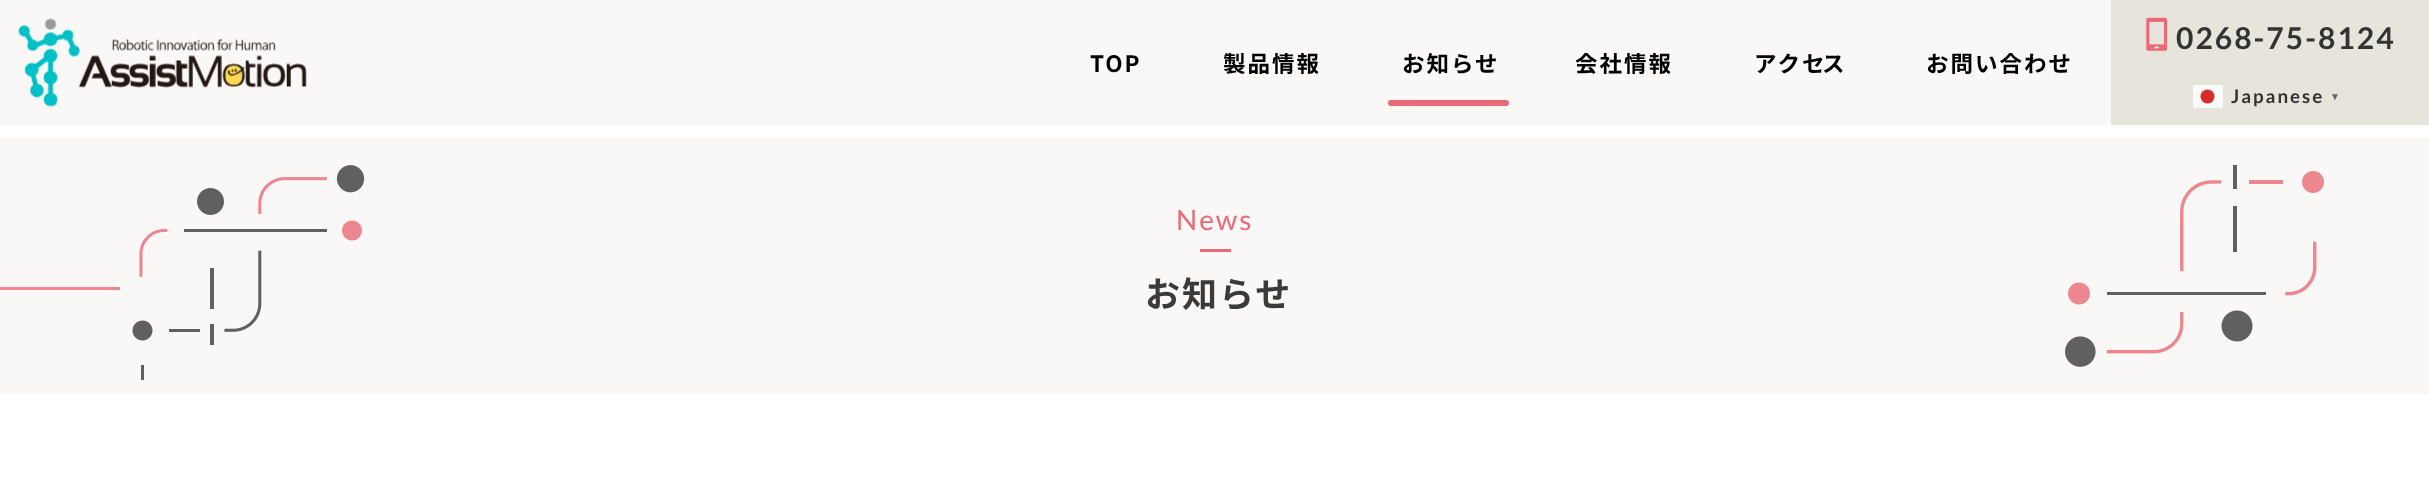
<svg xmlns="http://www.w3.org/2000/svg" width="2429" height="495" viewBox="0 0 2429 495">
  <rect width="100%" height="100%" fill="#ffffff"/>
  <rect x="0" y="0" width="2111" height="125" fill="#f9f8f6"/>
  <image x="18" y="18" width="289" height="89" href="img1.png"/>
  <text x="1090" y="72" font-family="Noto Sans JP" font-size="22.5" font-weight="bold" letter-spacing="2" fill="#000000">TOP</text>
  <text x="1223" y="72" font-family="Noto Sans JP" font-size="22.5" font-weight="bold" letter-spacing="2" fill="#000000">製品情報</text>
  <text x="1402" y="72" font-family="Noto Sans JP" font-size="22.5" font-weight="bold" letter-spacing="2" fill="#000000">お知らせ</text>
  <rect x="1388" y="100" width="121" height="6" rx="3" fill="#e86a77"/>
  <text x="1575" y="72" font-family="Noto Sans JP" font-size="22.5" font-weight="bold" letter-spacing="2" fill="#000000">会社情報</text>
  <text x="1754" y="72" font-family="Noto Sans JP" font-size="22.5" font-weight="bold" letter-spacing="2" fill="#000000">アクセ</text>
  <text x="1822" y="72" font-family="Noto Sans JP" font-size="22.5" font-weight="bold" letter-spacing="2" fill="#000000">ス</text>
  <text x="1926" y="72" font-family="Noto Sans JP" font-size="22.5" font-weight="bold" letter-spacing="2" fill="#000000">お問い合わせ</text>
  <rect x="2111" y="0" width="318" height="125" fill="#e7e4dc"/>
  <image x="2146" y="17" width="22" height="34" href="img2.png"/>
  <text x="2176" y="49" font-family="Lato" font-size="30" font-weight="bold" letter-spacing="2" fill="#333333">0268-75-8124</text>
  <text x="2231" y="103" font-family="Lato" font-size="18.75" font-weight="bold" letter-spacing="2" fill="#333333">Japanese</text>
  <rect x="2193" y="85" width="30" height="23" fill="#fafaf8"/>
  <circle cx="2207.5" cy="96.5" r="7" fill="#d72e2c"/>
  <text x="2330" y="100" font-family="Liberation Sans" font-size="10" font-weight="bold" letter-spacing="2" fill="#666666">▼</text>
  <rect x="0" y="138" width="2429" height="256" fill="#f9f8f6"/>
  <image x="0" y="165" width="365" height="215" href="img3.png"/>
  <text x="1176" y="230" font-family="Lato" font-size="28" letter-spacing="2" fill="#e86a77">News</text>
  <rect x="1200" y="249" width="31" height="3" fill="#e86a77"/>
  <text x="1145" y="307" font-family="Noto Sans JP" font-size="35" font-weight="bold" letter-spacing="2" fill="#3a3a3a">お知らせ</text>
  <image x="2065" y="165" width="259" height="202" href="img4.png"/>
</svg>
